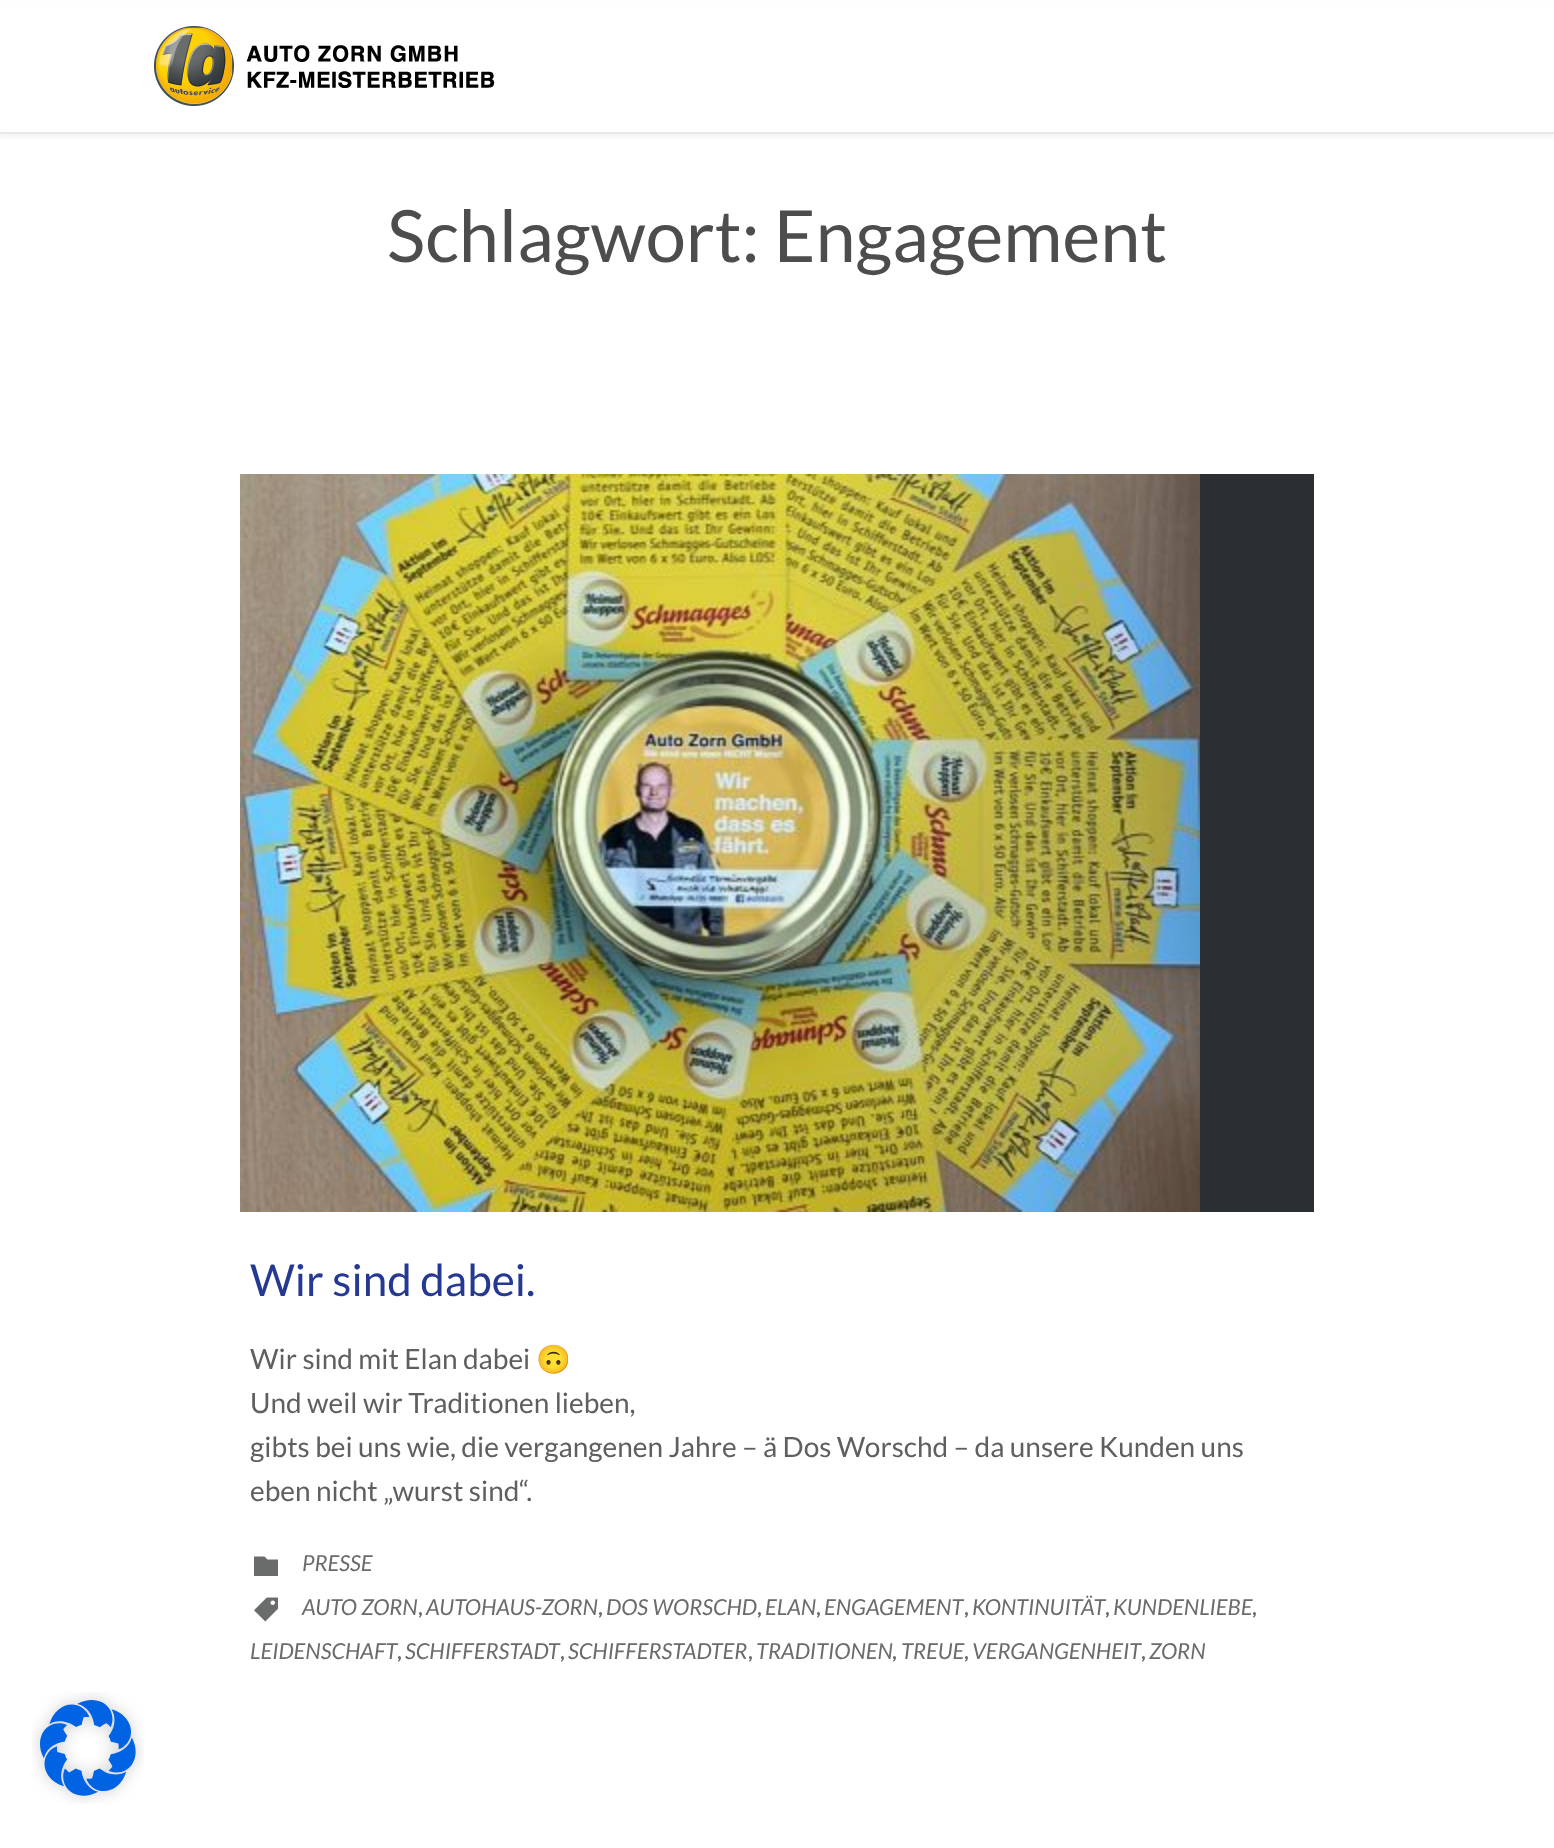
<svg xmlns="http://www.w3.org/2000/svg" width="1554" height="1848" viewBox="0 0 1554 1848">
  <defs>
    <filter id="blur1" x="-50%" y="-200%" width="200%" height="500%"><feGaussianBlur stdDeviation="2"/></filter>
  </defs>
  <rect width="100%" height="100%" fill="#ffffff"/>
  <rect x="0" y="4" width="1554" height="134" fill="#000000" fill-opacity="0.04" filter="url(#blur1)"/>
  <rect x="0" y="3" width="1554" height="129" fill="#ffffff"/>
  <rect x="0" y="132" width="1554" height="2" fill="#e8e8e8"/>
  <image x="154" y="26" width="341" height="80" href="img1.png"/>
  <text x="387" y="262" font-family="Lato" font-size="72" fill="#4d4d4d">Schlagwort: Engagement</text>
  <rect x="1200" y="474" width="114" height="738" fill="#2b2f34"/>
  <image x="240" y="474" width="960" height="738" href="img2.png"/>
  <text x="250" y="1296" font-family="Lato" font-size="44" fill="#253993">Wir sind dabei.</text>
  <text x="250" y="1369" font-family="Lato" font-size="28" fill="#5f5f5f">Wir sind mit Elan dabei</text>
  <text x="536" y="1369" font-family="Noto Color Emoji" font-size="28" fill="#5f5f5f">🙃</text>
  <text x="250" y="1413" font-family="Lato" font-size="28" fill="#5f5f5f">Und weil wir Traditionen lieben,</text>
  <text x="250" y="1457" font-family="Lato" font-size="28" fill="#5f5f5f">gibts bei uns wie, die vergangenen Jahre – ä Dos Worschd – da unsere Kunden uns</text>
  <text x="250" y="1501" font-family="Lato" font-size="28" fill="#5f5f5f">eben nicht „wurst sind“.</text>
  <path d="M264.5 1556.5L267.5 1559.5H278V1576H254V1556.5Z" fill="#6a6c6c"/>
  <text x="302" y="1571" font-family="Lato" font-size="22" font-style="italic" fill="#6a6c6c">PRESSE</text>
  <image x="254" y="1597" width="24" height="25" href="img3.png"/>
  <text x="302" y="1615" font-family="Lato" font-size="22" font-style="italic" fill="#6a6c6c">AUTO ZORN</text>
  <text x="418" y="1615" font-family="Lato" font-size="20" font-weight="bold" fill="#6a6c6c">,</text>
  <text x="426" y="1615" font-family="Lato" font-size="22" font-style="italic" fill="#6a6c6c">AUTOHAUS-ZORN</text>
  <text x="598" y="1615" font-family="Lato" font-size="20" font-weight="bold" fill="#6a6c6c">,</text>
  <text x="606" y="1615" font-family="Lato" font-size="22" font-style="italic" fill="#6a6c6c">DOS WORSCHD</text>
  <text x="757" y="1615" font-family="Lato" font-size="20" font-weight="bold" fill="#6a6c6c">,</text>
  <text x="765" y="1615" font-family="Lato" font-size="22" font-style="italic" fill="#6a6c6c">ELAN</text>
  <text x="816" y="1615" font-family="Lato" font-size="20" font-weight="bold" fill="#6a6c6c">,</text>
  <text x="824" y="1615" font-family="Lato" font-size="22" font-style="italic" fill="#6a6c6c">ENGAGEMENT</text>
  <text x="964" y="1615" font-family="Lato" font-size="20" font-weight="bold" fill="#6a6c6c">,</text>
  <text x="972" y="1615" font-family="Lato" font-size="22" font-style="italic" fill="#6a6c6c">KONTINUITÄT</text>
  <text x="1105" y="1615" font-family="Lato" font-size="20" font-weight="bold" fill="#6a6c6c">,</text>
  <text x="1113" y="1615" font-family="Lato" font-size="22" font-style="italic" fill="#6a6c6c">KUNDENLIEBE</text>
  <text x="1252" y="1615" font-family="Lato" font-size="20" font-weight="bold" fill="#6a6c6c">,</text>
  <text x="250" y="1659" font-family="Lato" font-size="22" font-style="italic" fill="#6a6c6c">LEIDENSCHAFT</text>
  <text x="397" y="1659" font-family="Lato" font-size="20" font-weight="bold" fill="#6a6c6c">,</text>
  <text x="405" y="1659" font-family="Lato" font-size="22" font-style="italic" fill="#6a6c6c">SCHIFFERSTADT</text>
  <text x="560" y="1659" font-family="Lato" font-size="20" font-weight="bold" fill="#6a6c6c">,</text>
  <text x="568" y="1659" font-family="Lato" font-size="22" font-style="italic" fill="#6a6c6c">SCHIFFERSTADTER</text>
  <text x="748" y="1659" font-family="Lato" font-size="20" font-weight="bold" fill="#6a6c6c">,</text>
  <text x="756" y="1659" font-family="Lato" font-size="22" font-style="italic" fill="#6a6c6c">TRADITIONEN</text>
  <text x="892" y="1659" font-family="Lato" font-size="20" font-weight="bold" fill="#6a6c6c">,</text>
  <text x="901" y="1659" font-family="Lato" font-size="22" font-style="italic" fill="#6a6c6c">TREUE</text>
  <text x="964" y="1659" font-family="Lato" font-size="20" font-weight="bold" fill="#6a6c6c">,</text>
  <text x="972" y="1659" font-family="Lato" font-size="22" font-style="italic" fill="#6a6c6c">VERGANGENHEIT</text>
  <text x="1141" y="1659" font-family="Lato" font-size="20" font-weight="bold" fill="#6a6c6c">,</text>
  <text x="1149" y="1659" font-family="Lato" font-size="22" font-style="italic" fill="#6a6c6c">ZORN</text>
  <image x="32" y="1692" width="112" height="112" href="img4.png"/>
</svg>
